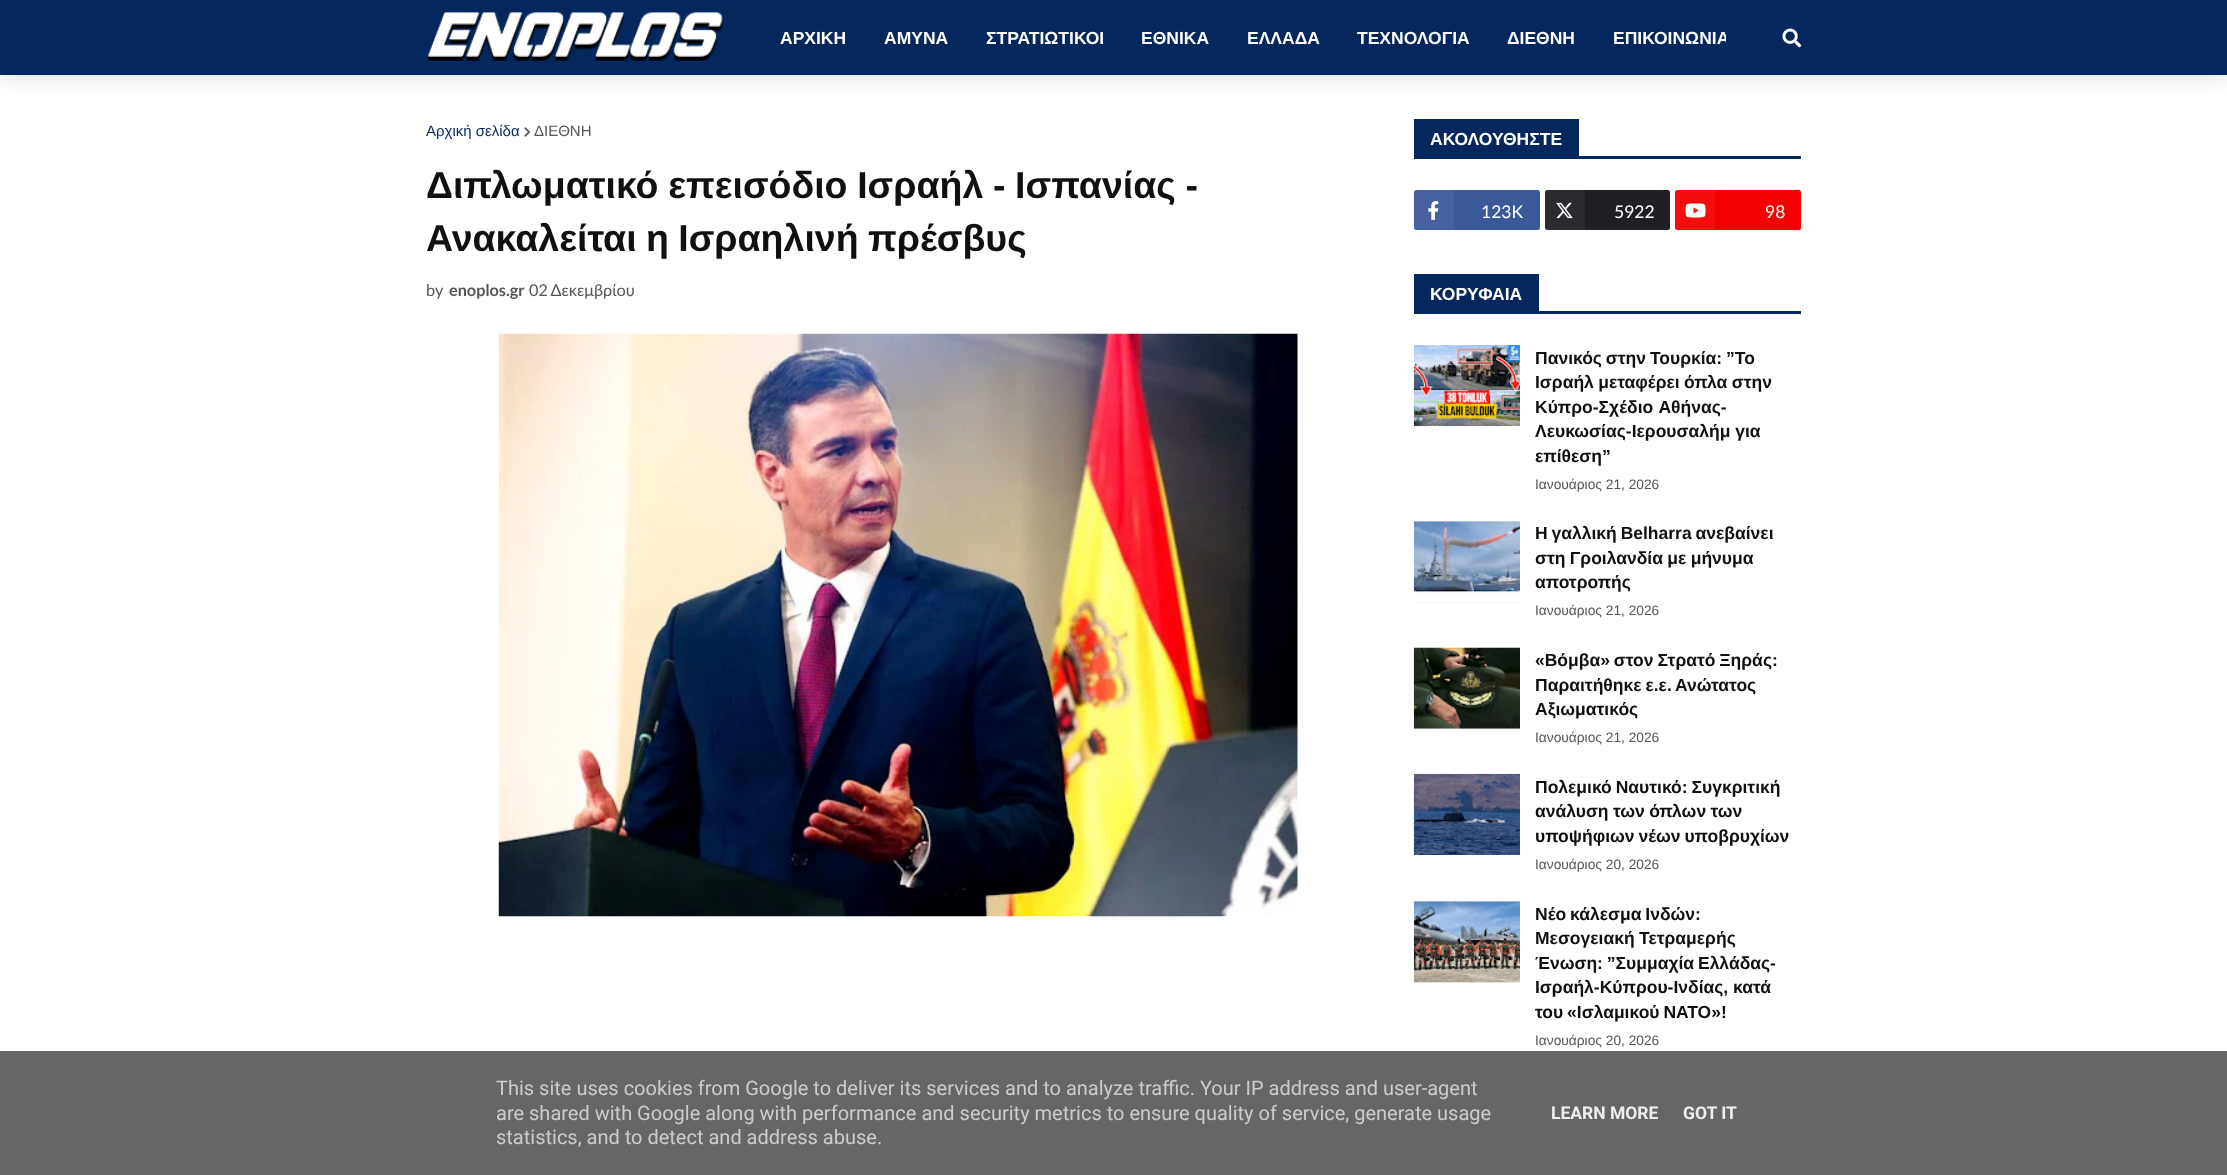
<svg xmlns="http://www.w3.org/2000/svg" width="2227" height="1175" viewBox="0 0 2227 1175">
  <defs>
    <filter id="blur1" x="-50%" y="-200%" width="200%" height="500%"><feGaussianBlur stdDeviation="12.5"/></filter>
  </defs>
  <rect width="100%" height="100%" fill="#ffffff"/>
  <rect x="0" y="0" width="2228" height="75" fill="#000000" fill-opacity="0.15" filter="url(#blur1)"/>
  <rect x="0" y="0" width="2227" height="75" fill="#04275e"/>
  <image x="427" y="12" width="297" height="49" href="img1.png"/>
  <text x="780" y="44" font-family="Liberation Sans" font-size="17.5" font-weight="bold" fill="#ffffff">ΑΡΧΙΚΗ</text>
  <text x="884" y="44" font-family="Liberation Sans" font-size="17.5" font-weight="bold" fill="#ffffff">ΑΜΥΝΑ</text>
  <text x="986" y="44" font-family="Liberation Sans" font-size="17.5" font-weight="bold" fill="#ffffff">ΣΤΡΑΤΙΩΤΙΚΟΙ</text>
  <text x="1141" y="44" font-family="Liberation Sans" font-size="17.5" font-weight="bold" fill="#ffffff">ΕΘΝΙΚΑ</text>
  <text x="1247" y="44" font-family="Liberation Sans" font-size="17.5" font-weight="bold" fill="#ffffff">ΕΛΛΑΔΑ</text>
  <text x="1357" y="44" font-family="Liberation Sans" font-size="17.5" font-weight="bold" fill="#ffffff">ΤΕΧΝΟΛΟΓΙΑ</text>
  <text x="1507" y="44" font-family="Liberation Sans" font-size="17.5" font-weight="bold" fill="#ffffff">ΔΙΕΘΝΗ</text>
  <text x="1613" y="44" font-family="Liberation Sans" font-size="17.5" font-weight="bold" fill="#ffffff">ΕΠΙΚΟΙΝΩΝΙΑ</text>
  <rect x="1726" y="36" width="3" height="8" fill="#04275e"/>
  <image x="1782" y="28" width="20" height="20" href="img2.png"/>
  <text x="426" y="136" font-family="Liberation Sans" font-size="15" fill="#04275e">Αρχική σελίδα</text>
  <image x="524" y="127" width="7" height="10" href="img3.png"/>
  <text x="534" y="136" font-family="Liberation Sans" font-size="15" fill="#555555">ΔΙΕΘΝΗ</text>
  <text x="426" y="198" word-spacing="-0.75" font-family="Liberation Sans" font-size="37.5" font-weight="bold" fill="#101012">Διπλωματικό επεισόδιο Ισραήλ - Ισπανίας -</text>
  <text x="426" y="251" word-spacing="-1" font-family="Liberation Sans" font-size="37.5" font-weight="bold" fill="#101012">Ανακαλείται η Ισραηλινή πρέσβυς</text>
  <text x="426" y="296" font-family="Lato" font-size="16.25" fill="#555555">by</text>
  <text x="449" y="296" font-family="Lato" font-size="16.25" font-weight="bold" fill="#555555">enoplos.gr</text>
  <text x="529" y="296" word-spacing="-1" font-family="Lato" font-size="16.25" fill="#555555">02 Δεκεμβρίου</text>
  <image x="498" y="333" width="800" height="584" href="img4.png"/>
  <rect x="1414" y="156" width="387" height="3" fill="#04275e"/>
  <rect x="1414" y="119" width="165" height="37" fill="#04275e"/>
  <text x="1430" y="145" font-family="Liberation Sans" font-size="17.5" font-weight="bold" fill="#ffffff">ΑΚΟΛΟΥΘΗΣΤΕ</text>
  <rect x="1414" y="190" width="126" height="40" rx="2.5" fill="#3b5999"/>
  <rect x="1414" y="190" width="40" height="40" fill="#ffffff" fill-opacity="0.05"/>
  <image x="1428" y="201" width="11" height="19" href="img5.png"/>
  <text x="1481" y="218" font-family="Lato" font-size="17.5" fill="#ffffff">123Κ</text>
  <rect x="1545" y="190" width="125" height="40" rx="2.5" fill="#1f2024"/>
  <rect x="1545" y="190" width="40" height="40" fill="#ffffff" fill-opacity="0.05"/>
  <image x="1556" y="202" width="17" height="17" href="img6.png"/>
  <text x="1614" y="218" font-family="Lato" font-size="17.5" fill="#ffffff">5922</text>
  <rect x="1675" y="190" width="126" height="40" rx="2.5" fill="#f50000"/>
  <rect x="1675" y="190" width="40" height="40" fill="#ffffff" fill-opacity="0.05"/>
  <image x="1685" y="203" width="21" height="15" href="img7.png"/>
  <text x="1765" y="218" font-family="Lato" font-size="17.5" fill="#ffffff">98</text>
  <rect x="1414" y="311" width="387" height="3" fill="#04275e"/>
  <rect x="1414" y="274" width="125" height="37" fill="#04275e"/>
  <text x="1430" y="300" font-family="Liberation Sans" font-size="17.5" font-weight="bold" fill="#ffffff">ΚΟΡΥΦΑΙΑ</text>
  <image x="1413" y="345" width="107" height="82" href="img8.png"/>
  <text x="1535" y="364" word-spacing="-1" font-family="Liberation Sans" font-size="17.5" font-weight="bold" fill="#101012">Πανικός στην Τουρκία: ”Το</text>
  <text x="1535" y="388" word-spacing="-0.5" font-family="Liberation Sans" font-size="17.5" font-weight="bold" fill="#101012">Ισραήλ μεταφέρει όπλα στην</text>
  <text x="1535" y="413" word-spacing="1" font-family="Liberation Sans" font-size="17.5" font-weight="bold" fill="#101012">Κύπρο-Σχέδιο Αθήνας-</text>
  <text x="1535" y="437" font-family="Liberation Sans" font-size="17.5" font-weight="bold" fill="#101012">Λευκωσίας-Ιερουσαλήμ για</text>
  <text x="1535" y="462" font-family="Liberation Sans" font-size="17.5" font-weight="bold" fill="#101012">επίθεση”</text>
  <text x="1535" y="489" font-family="Liberation Sans" font-size="13.75" fill="#555555">Ιανουάριος 21, 2026</text>
  <rect x="1414" y="521" width="106" height="82" fill="#f7f7f7"/>
  <image x="1413" y="521" width="107" height="81" href="img9.png"/>
  <text x="1535" y="539" word-spacing="-1" font-family="Liberation Sans" font-size="17.5" font-weight="bold" fill="#101012">Η γαλλική Belharra ανεβαίνει</text>
  <text x="1535" y="564" word-spacing="-0.5" font-family="Liberation Sans" font-size="17.5" font-weight="bold" fill="#101012">στη Γροιλανδία με μήνυμα</text>
  <text x="1535" y="588" font-family="Liberation Sans" font-size="17.5" font-weight="bold" fill="#101012">αποτροπής</text>
  <text x="1535" y="615" font-family="Liberation Sans" font-size="13.75" fill="#555555">Ιανουάριος 21, 2026</text>
  <rect x="1414" y="728" width="106" height="1" fill="#f7f7f7"/>
  <image x="1413" y="647" width="107" height="82" href="img10.png"/>
  <text x="1535" y="666" word-spacing="-1" font-family="Liberation Sans" font-size="17.5" font-weight="bold" fill="#101012">«Βόμβα» στον Στρατό Ξηράς:</text>
  <text x="1535" y="691" word-spacing="-1" font-family="Liberation Sans" font-size="17.5" font-weight="bold" fill="#101012">Παραιτήθηκε ε.ε. Ανώτατος</text>
  <text x="1535" y="715" font-family="Liberation Sans" font-size="17.5" font-weight="bold" fill="#101012">Αξιωματικός</text>
  <text x="1535" y="742" font-family="Liberation Sans" font-size="13.75" fill="#555555">Ιανουάριος 21, 2026</text>
  <image x="1413" y="773" width="107" height="82" href="img11.png"/>
  <text x="1535" y="793" word-spacing="-1" font-family="Liberation Sans" font-size="17.5" font-weight="bold" fill="#101012">Πολεμικό Ναυτικό: Συγκριτική</text>
  <text x="1535" y="817" word-spacing="-0.5" font-family="Liberation Sans" font-size="17.5" font-weight="bold" fill="#101012">ανάλυση των όπλων των</text>
  <text x="1535" y="842" word-spacing="-1" font-family="Liberation Sans" font-size="17.5" font-weight="bold" fill="#101012">υποψήφιων νέων υποβρυχίων</text>
  <text x="1535" y="869" font-family="Liberation Sans" font-size="13.75" fill="#555555">Ιανουάριος 20, 2026</text>
  <rect x="1414" y="901" width="106" height="82" fill="#f7f7f7"/>
  <image x="1413" y="901" width="107" height="82" href="img12.png"/>
  <text x="1535" y="920" word-spacing="-1" font-family="Liberation Sans" font-size="17.5" font-weight="bold" fill="#101012">Νέο κάλεσμα Ινδών:</text>
  <text x="1535" y="944" word-spacing="-0.5" font-family="Liberation Sans" font-size="17.5" font-weight="bold" fill="#101012">Μεσογειακή Τετραμερής</text>
  <text x="1535" y="969" word-spacing="-1" font-family="Liberation Sans" font-size="17.5" font-weight="bold" fill="#101012">Ένωση: ”Συμμαχία Ελλάδας-</text>
  <text x="1535" y="993" font-family="Liberation Sans" font-size="17.5" font-weight="bold" fill="#101012">Ισραήλ-Κύπρου-Ινδίας, κατά</text>
  <text x="1535" y="1018" word-spacing="-1" font-family="Liberation Sans" font-size="17.5" font-weight="bold" fill="#101012">του «Ισλαμικού ΝΑΤΟ»!</text>
  <text x="1535" y="1045" font-family="Liberation Sans" font-size="13.75" fill="#555555">Ιανουάριος 20, 2026</text>
  <rect x="0" y="1051" width="2227" height="124" fill="#666666"/>
  <text x="496" y="1095" font-family="Roboto" font-size="20" fill="#cccccc">This site uses cookies from Google to deliver its services and to analyze traffic. Your IP address and user-agent</text>
  <text x="496" y="1120" font-family="Roboto" font-size="20" fill="#cccccc">are shared with Google along with performance and security metrics to ensure quality of service, generate usage</text>
  <text x="496" y="1144" font-family="Roboto" font-size="20" fill="#cccccc">statistics, and to detect and address abuse.</text>
  <text x="1551" y="1119" font-family="Roboto" font-size="17.5" font-weight="bold" fill="#eeeeee">LEARN MORE</text>
  <text x="1683" y="1119" font-family="Roboto" font-size="17.5" font-weight="bold" fill="#eeeeee">GOT IT</text>
</svg>
